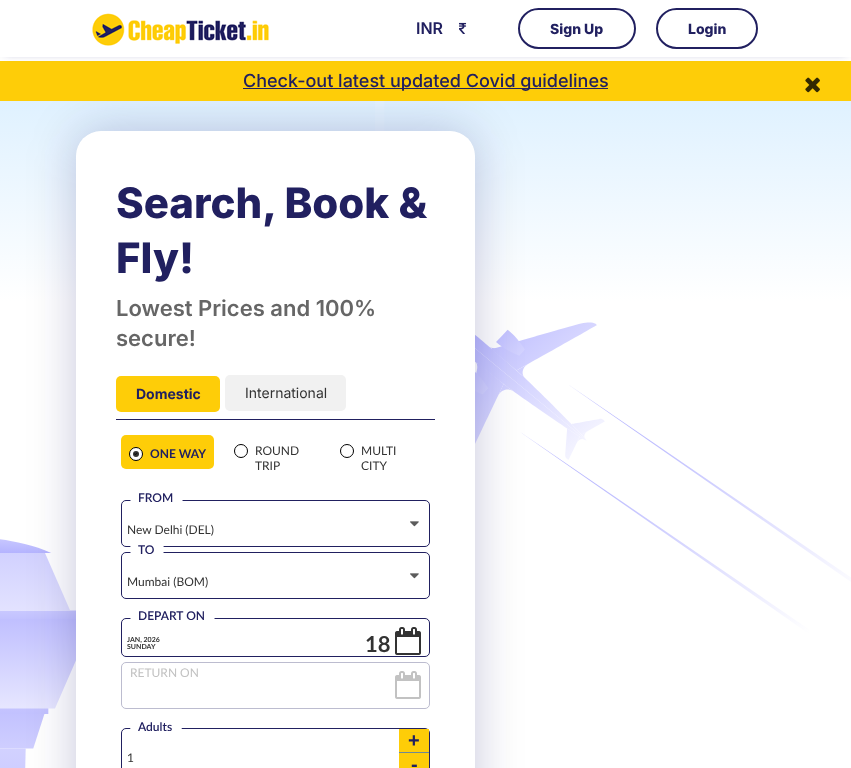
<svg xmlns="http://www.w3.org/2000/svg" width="851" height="768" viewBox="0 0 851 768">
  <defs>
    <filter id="blur1" x="-50%" y="-200%" width="200%" height="500%"><feGaussianBlur stdDeviation="23.5"/></filter>
    <filter id="blur2" x="-50%" y="-200%" width="200%" height="500%"><feGaussianBlur stdDeviation="5"/></filter>
  </defs>
  <rect width="100%" height="100%" fill="#ffffff"/>
  <image x="0" y="101" width="851" height="667" href="img3.png"/>
  <rect x="76" y="131" width="399" height="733" rx="25" fill="#212060" fill-opacity="0.22" filter="url(#blur1)"/>
  <rect x="0" y="61" width="851" height="40" fill="#fecd08"/>
  <rect x="5" y="5" width="841" height="47" fill="#212060" fill-opacity="0.52" filter="url(#blur2)"/>
  <rect x="0" y="0" width="851" height="57" fill="#ffffff"/>
  <image x="92" y="13" width="177" height="33" href="img1.png"/>
  <text x="416" y="34" font-family="Inter" font-size="16" font-weight="600" fill="#212060">INR</text>
  <image x="459" y="22" width="8" height="12" href="img2.png"/>
  <rect x="519" y="9" width="116" height="39" rx="19.5" fill="none" stroke="#212060" stroke-width="2"/>
  <text x="550" y="34" font-family="Inter" font-size="14" font-weight="800" fill="#212060">Sign Up</text>
  <rect x="657" y="9" width="100" height="39" rx="19.5" fill="none" stroke="#212060" stroke-width="2"/>
  <text x="688" y="34" font-family="Inter" font-size="14" font-weight="800" fill="#212060">Login</text>
  <rect x="243" y="88" width="365" height="1" fill="#212060"/>
  <text x="243" y="87" font-family="Inter" font-size="18" font-weight="500" fill="#212060">Check-out latest updated Covid guidelines</text>
  <image x="805" y="77" width="15" height="16" href="img4.png"/>
  <rect x="76" y="131" width="399" height="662" rx="25" fill="#ffffff"/>
  <text x="116" y="218" font-family="Inter" font-size="42" font-weight="800" fill="#212060">Search, Book &amp;</text>
  <text x="116" y="273" font-family="Inter" font-size="42" font-weight="800" fill="#212060">Fly!</text>
  <text x="116" y="316" font-family="Inter" font-size="22" font-weight="600" fill="#666666">Lowest Prices and 100%</text>
  <text x="116" y="346" font-family="Inter" font-size="22" font-weight="600" fill="#666666">secure!</text>
  <rect x="116" y="419" width="319" height="1" fill="#212060"/>
  <rect x="116" y="376" width="104" height="36" rx="5" fill="#fecd08"/>
  <text x="136" y="399" font-family="Inter" font-size="14" font-weight="bold" fill="#212060">Domestic</text>
  <rect x="225" y="375" width="121" height="36" rx="5" fill="#f1f1f1"/>
  <text x="245" y="398" font-family="Inter" font-size="14" fill="#333333">International</text>
  <rect x="121" y="435" width="93" height="34" rx="5" fill="#fecd08"/>
  <circle cx="136" cy="454" r="6.5" fill="#ffffff" stroke="#000000"/>
  <text x="150" y="458" font-family="Lato" font-size="12" font-weight="bold" fill="#212060">ONE WAY</text>
  <circle cx="136" cy="454" r="3" fill="#333333"/>
  <image x="134" y="452" width="4" height="3" href="img5.png"/>
  <circle cx="241" cy="451" r="6.5" fill="none" stroke="#000000"/>
  <text x="255" y="455" font-family="Lato" font-size="12" fill="#333333">ROUND</text>
  <text x="255" y="470" font-family="Lato" font-size="12" fill="#333333">TRIP</text>
  <circle cx="347" cy="451" r="6.5" fill="none" stroke="#000000"/>
  <text x="361" y="455" font-family="Lato" font-size="12" fill="#333333">MULTI</text>
  <text x="361" y="470" font-family="Lato" font-size="12" fill="#333333">CITY</text>
  <rect x="121.5" y="500.5" width="308" height="46" rx="4.5" fill="none" stroke="#212060"/>
  <rect x="130" y="489" width="53" height="17" rx="8" fill="#ffffff"/>
  <text x="138" y="502" font-family="Lato" font-size="12" font-weight="600" fill="#212060">FROM</text>
  <text x="127" y="534" font-family="Lato" font-size="12" fill="#333333">New Delhi (DEL)</text>
  <image x="410" y="521" width="9" height="6" href="img6.png"/>
  <rect x="121.5" y="552.5" width="308" height="46" rx="4.5" fill="none" stroke="#212060"/>
  <rect x="130" y="541" width="34" height="17" rx="8" fill="#ffffff"/>
  <text x="138" y="554" font-family="Lato" font-size="12" font-weight="600" fill="#212060">TO</text>
  <text x="127" y="586" font-family="Lato" font-size="12" fill="#333333">Mumbai (BOM)</text>
  <image x="410" y="573" width="9" height="6" href="img6.png"/>
  <rect x="121.5" y="618.5" width="308" height="38" rx="4.5" fill="none" stroke="#212060"/>
  <rect x="130" y="607" width="85" height="17" rx="8" fill="#ffffff"/>
  <text x="138" y="620" font-family="Lato" font-size="12" font-weight="600" fill="#212060">DEPART ON</text>
  <text x="127" y="642" font-family="Lato" font-size="7" font-weight="bold" fill="#333333">JAN, 2026</text>
  <text x="127" y="649" font-family="Lato" font-size="7" font-weight="bold" fill="#333333">SUNDAY</text>
  <text x="365" y="652" font-family="Lato" font-size="22" font-weight="bold" fill="#333333">18</text>
  <image x="395" y="627" width="26" height="28" href="img7.png"/>
  <rect x="121.5" y="662.5" width="308" height="46" rx="4.5" fill="none" stroke="#bcbccf"/>
  <text x="130" y="677" font-family="Lato" font-size="12" fill="#c2c2c2">RETURN ON</text>
  <image x="395" y="671" width="26" height="28" href="img8.png"/>
  <rect x="121.5" y="728.5" width="308" height="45" rx="4.5" fill="none" stroke="#212060"/>
  <rect x="130" y="717" width="52" height="18" rx="8" fill="#ffffff"/>
  <text x="138" y="731" font-family="Lato" font-size="12" font-weight="600" fill="#212060">Adults</text>
  <rect x="399" y="729" width="30" height="23" fill="#fecd08"/>
  <text x="408" y="747" font-family="Liberation Sans" font-size="20" font-weight="bold" fill="#212060">+</text>
  <text x="127" y="762" font-family="Lato" font-size="12" fill="#333333">1</text>
  <rect x="399" y="753" width="30" height="15" fill="#fecd08"/>
  <rect x="399" y="752" width="30" height="1" fill="#6e8995"/>
  <text x="411" y="771" font-family="Liberation Sans" font-size="20" font-weight="bold" fill="#212060">-</text>
</svg>
